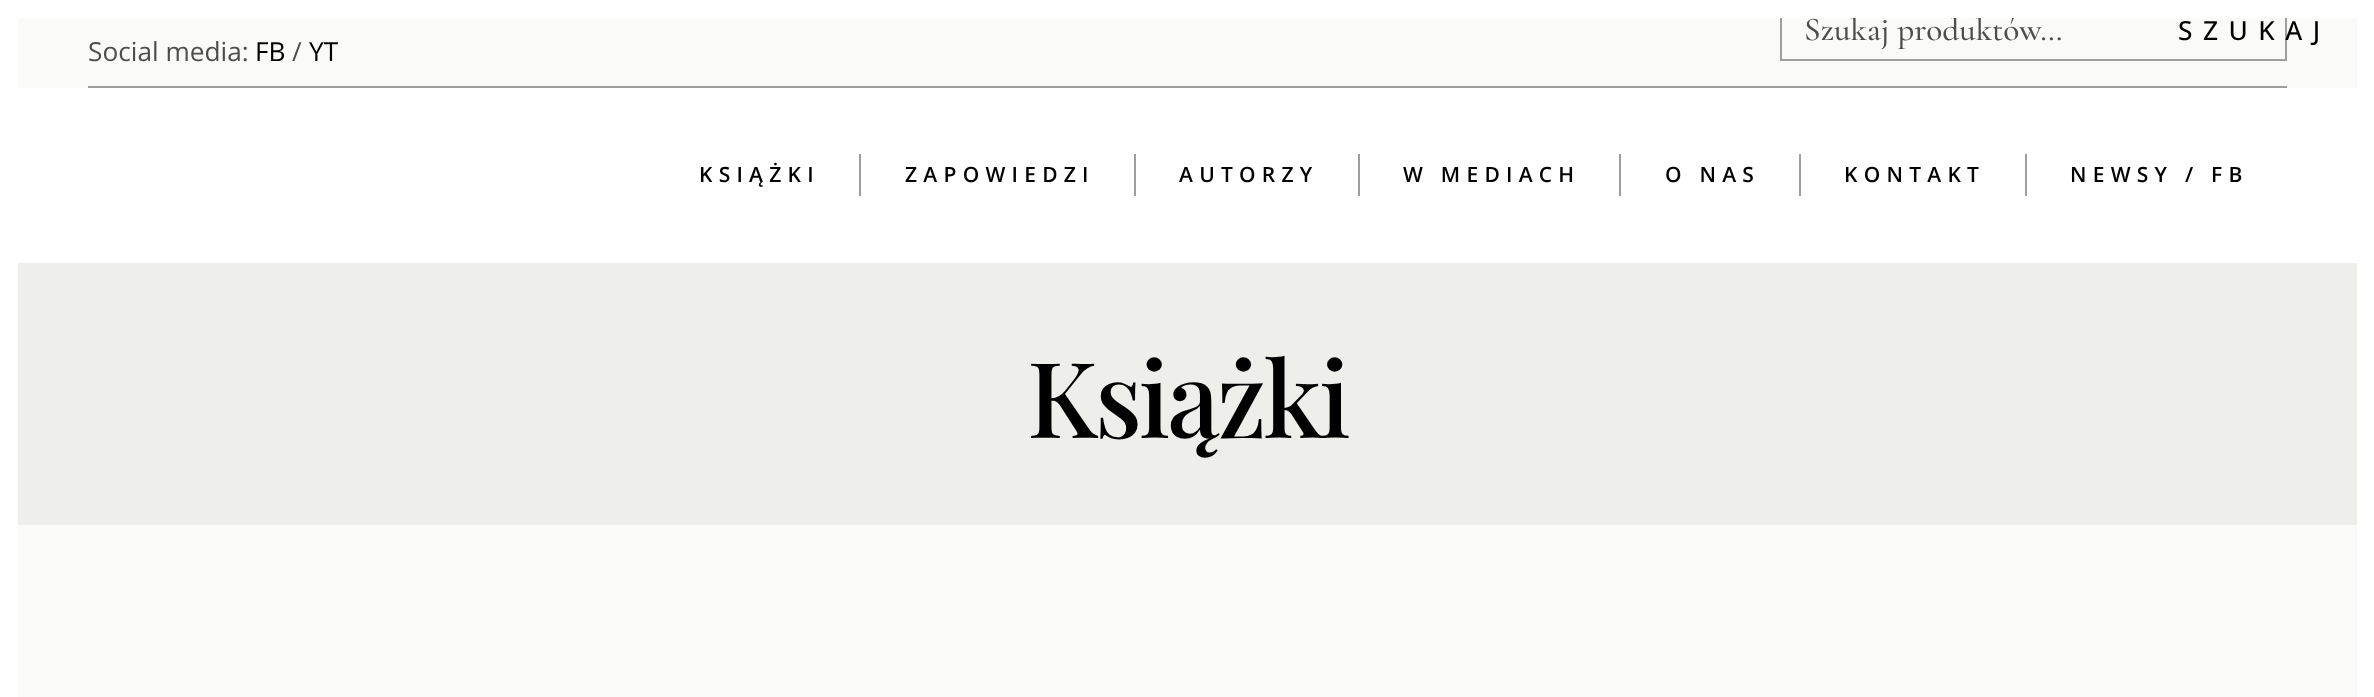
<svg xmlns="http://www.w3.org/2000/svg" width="2374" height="697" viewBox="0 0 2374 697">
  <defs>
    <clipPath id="clip1"><rect x="18" y="18" width="2339" height="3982"/></clipPath>
    <clipPath id="clip2"><rect x="1804" y="18" width="394" height="31"/></clipPath>
  </defs>
  <rect width="100%" height="100%" fill="#ffffff"/>
  <rect x="18" y="18" width="2339" height="679" fill="#fafaf8"/>
  <rect x="88" y="86" width="2199" height="2" fill="#9e9e9e"/>
  <g clip-path="url(#clip1)">
    <rect x="1781" y="-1" width="505" height="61" fill="none" stroke="#9e9e9e" stroke-width="2"/>
  </g>
  <g clip-path="url(#clip2)">
    <text x="1804" y="40" font-family="Cormorant Garamond" font-size="33.25" font-weight="500" fill="#4d4d4d">Szukaj produktów…</text>
  </g>
  <text x="2178" y="40" font-family="Open Sans" font-size="26.25" font-weight="500" letter-spacing="10.5" fill="#000000">SZUKAJ</text>
  <text x="88" y="61" font-family="Open Sans" font-size="26.25" fill="#4d4d4d">Social media:</text>
  <text x="255" y="61" font-family="Open Sans" font-size="26.25" fill="#000000">FB</text>
  <text x="292" y="61" font-family="Open Sans" font-size="26.25" fill="#4d4d4d">/</text>
  <text x="309" y="61" font-family="Open Sans" font-size="26.25" fill="#000000">YT</text>
  <rect x="18" y="88" width="2339" height="175" fill="#ffffff"/>
  <rect x="859" y="154" width="2" height="42" fill="#9e9e9e"/>
  <text x="699" y="182" font-family="Open Sans" font-size="21" font-weight="600" letter-spacing="6.25" fill="#000000">KSIĄŻKI</text>
  <rect x="1134" y="154" width="2" height="42" fill="#9e9e9e"/>
  <text x="905" y="182" font-family="Open Sans" font-size="21" font-weight="600" letter-spacing="6.25" fill="#000000">ZAPOWIEDZI</text>
  <rect x="1358" y="154" width="2" height="42" fill="#9e9e9e"/>
  <text x="1179" y="182" font-family="Open Sans" font-size="21" font-weight="600" letter-spacing="6.25" fill="#000000">AUTORZY</text>
  <rect x="1619" y="154" width="2" height="42" fill="#9e9e9e"/>
  <text x="1403" y="182" font-family="Open Sans" font-size="21" font-weight="600" letter-spacing="6.25" fill="#000000">W MEDIACH</text>
  <rect x="1799" y="154" width="2" height="42" fill="#9e9e9e"/>
  <text x="1665" y="182" font-family="Open Sans" font-size="21" font-weight="600" letter-spacing="6.25" fill="#000000">O NAS</text>
  <rect x="2025" y="154" width="2" height="42" fill="#9e9e9e"/>
  <text x="1844" y="182" font-family="Open Sans" font-size="21" font-weight="600" letter-spacing="6.25" fill="#000000">KONTAKT</text>
  <text x="2070" y="182" font-family="Open Sans" font-size="21" font-weight="600" letter-spacing="6.25" fill="#000000">NEWSY / FB</text>
  <rect x="18" y="263" width="2339" height="262" fill="#eeeeeb"/>
  <text x="1027" y="438" font-family="Playfair Display" font-size="105" font-weight="500" letter-spacing="-3.25" fill="#000000">Książki</text>
</svg>
